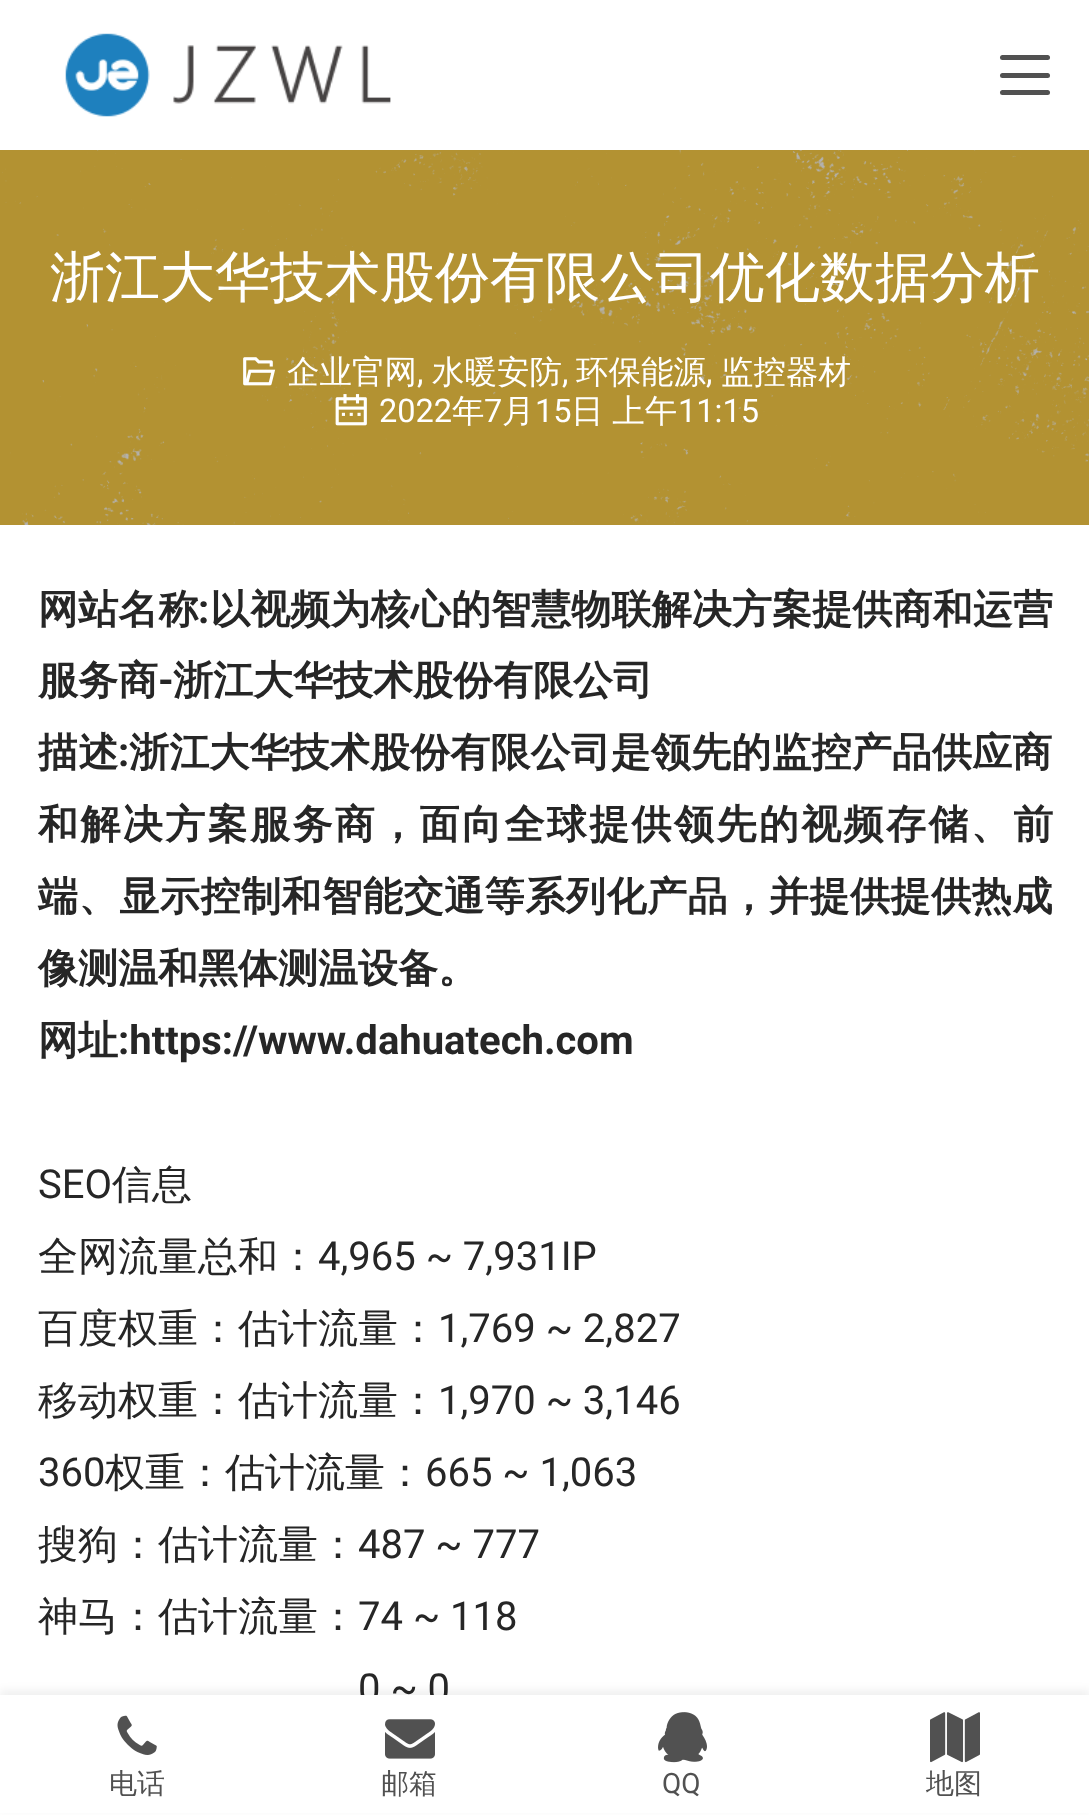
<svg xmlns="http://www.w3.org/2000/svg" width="1089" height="1815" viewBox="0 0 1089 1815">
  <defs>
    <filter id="blur1" x="-50%" y="-200%" width="200%" height="500%"><feGaussianBlur stdDeviation="4"/></filter>
  </defs>
  <rect width="100%" height="100%" fill="#ffffff"/>
  <image x="65" y="33" width="326" height="84" href="img1.png"/>
  <rect x="1000" y="55" width="50" height="5" rx="2.5" fill="#515151"/>
  <rect x="1000" y="73" width="50" height="5" rx="2.5" fill="#515151"/>
  <rect x="1000" y="90" width="50" height="5" rx="2.5" fill="#515151"/>
  <image x="0" y="150" width="1089" height="375" href="img2.png"/>
  <text x="50" y="296" font-family="WenQuanYi Zen Hei" font-size="55" font-weight="500" fill="#ffffff">浙江大华技术股份有限公司优化数据分析</text>
  <image x="243" y="357" width="33" height="29" href="img3.png"/>
  <text x="287" y="383" font-family="WenQuanYi Zen Hei" font-size="32.5" font-weight="500" fill="#ffffff">企业官网</text>
  <text x="417" y="383" font-family="Roboto" font-size="32.5" fill="#ffffff">,</text>
  <text x="432" y="383" font-family="WenQuanYi Zen Hei" font-size="32.5" font-weight="500" fill="#ffffff">水暖安防</text>
  <text x="562" y="383" font-family="Roboto" font-size="32.5" fill="#ffffff">,</text>
  <text x="576" y="383" font-family="WenQuanYi Zen Hei" font-size="32.5" font-weight="500" fill="#ffffff">环保能源</text>
  <text x="706" y="383" font-family="Roboto" font-size="32.5" fill="#ffffff">,</text>
  <text x="721" y="383" font-family="WenQuanYi Zen Hei" font-size="32.5" font-weight="500" fill="#ffffff">监控器材</text>
  <image x="335" y="394" width="32" height="32" href="img4.png"/>
  <text x="379" y="422" font-family="Roboto" font-size="32.5" fill="#ffffff">2022</text>
  <text x="452" y="422" font-family="WenQuanYi Zen Hei" font-size="32.5" font-weight="500" fill="#ffffff">年</text>
  <text x="484" y="422" font-family="Roboto" font-size="32.5" fill="#ffffff">7</text>
  <text x="502" y="422" font-family="WenQuanYi Zen Hei" font-size="32.5" font-weight="500" fill="#ffffff">月</text>
  <text x="535" y="422" font-family="Roboto" font-size="32.5" fill="#ffffff">15</text>
  <text x="571" y="422" word-spacing="-1" font-family="WenQuanYi Zen Hei" font-size="32.5" font-weight="500" fill="#ffffff">日 上午</text>
  <text x="678" y="422" font-family="Roboto" font-size="32.5" fill="#ffffff">11:15</text>
  <text x="38" y="623" font-family="WenQuanYi Zen Hei" font-size="40" font-weight="bold" letter-spacing="0.15" fill="#262626">网站名称</text>
  <text x="198" y="623" font-family="Roboto" font-size="40" font-weight="bold" letter-spacing="0.15" fill="#262626">:</text>
  <text x="210" y="623" font-family="WenQuanYi Zen Hei" font-size="40" font-weight="bold" letter-spacing="0.15" fill="#262626">以视频为核心的智慧物联解决方案提供商和运营</text>
  <text x="38" y="694" font-family="WenQuanYi Zen Hei" font-size="40" font-weight="bold" fill="#262626">服务商</text>
  <text x="158" y="694" font-family="Roboto" font-size="40" font-weight="bold" fill="#262626">-</text>
  <text x="173" y="694" font-family="WenQuanYi Zen Hei" font-size="40" font-weight="bold" fill="#262626">浙江大华技术股份有限公司</text>
  <text x="38" y="766" font-family="WenQuanYi Zen Hei" font-size="40" font-weight="bold" letter-spacing="0.15" fill="#262626">描述</text>
  <text x="118" y="766" font-family="Roboto" font-size="40" font-weight="bold" letter-spacing="0.15" fill="#262626">:</text>
  <text x="129" y="766" font-family="WenQuanYi Zen Hei" font-size="40" font-weight="bold" letter-spacing="0.15" fill="#262626">浙江大华技术股份有限公司是领先的监控产品供应商</text>
  <text x="38" y="838" font-family="WenQuanYi Zen Hei" font-size="40" font-weight="bold" letter-spacing="2.4" fill="#262626">和解决方案服务商，面向全球提供领先的视频存储、前</text>
  <text x="38" y="910" font-family="WenQuanYi Zen Hei" font-size="40" font-weight="bold" letter-spacing="0.6" fill="#262626">端、显示控制和智能交通等系列化产品，并提供提供热成</text>
  <text x="38" y="982" font-family="WenQuanYi Zen Hei" font-size="40" font-weight="bold" fill="#262626">像测温和黑体测温设备。</text>
  <text x="38" y="1054" font-family="WenQuanYi Zen Hei" font-size="40" font-weight="bold" fill="#262626">网址</text>
  <text x="118" y="1054" font-family="Roboto" font-size="40" font-weight="bold" fill="#262626">:https://www.dahuatech.com</text>
  <text x="38" y="1198" font-family="Roboto" font-size="40" fill="#262626">SEO</text>
  <text x="112" y="1198" font-family="WenQuanYi Zen Hei" font-size="40" font-weight="500" fill="#262626">信息</text>
  <text x="38" y="1270" font-family="WenQuanYi Zen Hei" font-size="40" font-weight="500" fill="#262626">全网流量总和：</text>
  <text x="318" y="1270" font-family="Roboto" font-size="40" fill="#262626">4,965 ~ 7,931IP</text>
  <text x="38" y="1342" font-family="WenQuanYi Zen Hei" font-size="40" font-weight="500" fill="#262626">百度权重：估计流量：</text>
  <text x="438" y="1342" font-family="Roboto" font-size="40" fill="#262626">1,769 ~ 2,827</text>
  <text x="38" y="1414" font-family="WenQuanYi Zen Hei" font-size="40" font-weight="500" fill="#262626">移动权重：估计流量：</text>
  <text x="438" y="1414" font-family="Roboto" font-size="40" fill="#262626">1,970 ~ 3,146</text>
  <text x="38" y="1486" font-family="Roboto" font-size="40" fill="#262626">360</text>
  <text x="105" y="1486" font-family="WenQuanYi Zen Hei" font-size="40" font-weight="500" fill="#262626">权重：估计流量：</text>
  <text x="425" y="1486" font-family="Roboto" font-size="40" fill="#262626">665 ~ 1,063</text>
  <text x="38" y="1558" font-family="WenQuanYi Zen Hei" font-size="40" font-weight="500" fill="#262626">搜狗：估计流量：</text>
  <text x="358" y="1558" font-family="Roboto" font-size="40" fill="#262626">487 ~ 777</text>
  <text x="38" y="1630" font-family="WenQuanYi Zen Hei" font-size="40" font-weight="500" fill="#262626">神马：估计流量：</text>
  <text x="358" y="1630" font-family="Roboto" font-size="40" fill="#262626">74 ~ 118</text>
  <text x="358" y="1702" font-family="Roboto" font-size="40" fill="#262626">0 ~ 0</text>
  <rect x="0" y="1690" width="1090" height="120" fill="#262626" fill-opacity="0.06" filter="url(#blur1)"/>
  <rect x="0" y="1695" width="1089" height="118" fill="#ffffff"/>
  <image x="117" y="1715" width="40" height="40" href="img5.png"/>
  <text x="109" y="1793" font-family="WenQuanYi Zen Hei" font-size="28" font-weight="500" fill="#515151">电话</text>
  <image x="385" y="1719" width="50" height="40" href="img6.png"/>
  <text x="381" y="1793" font-family="WenQuanYi Zen Hei" font-size="28" font-weight="500" fill="#515151">邮箱</text>
  <image x="658" y="1712" width="49" height="51" href="img7.png"/>
  <text x="662" y="1793" font-family="Roboto" font-size="28" fill="#515151">QQ</text>
  <image x="930" y="1712" width="50" height="51" href="img8.png"/>
  <text x="926" y="1793" font-family="WenQuanYi Zen Hei" font-size="28" font-weight="500" fill="#515151">地图</text>
</svg>
